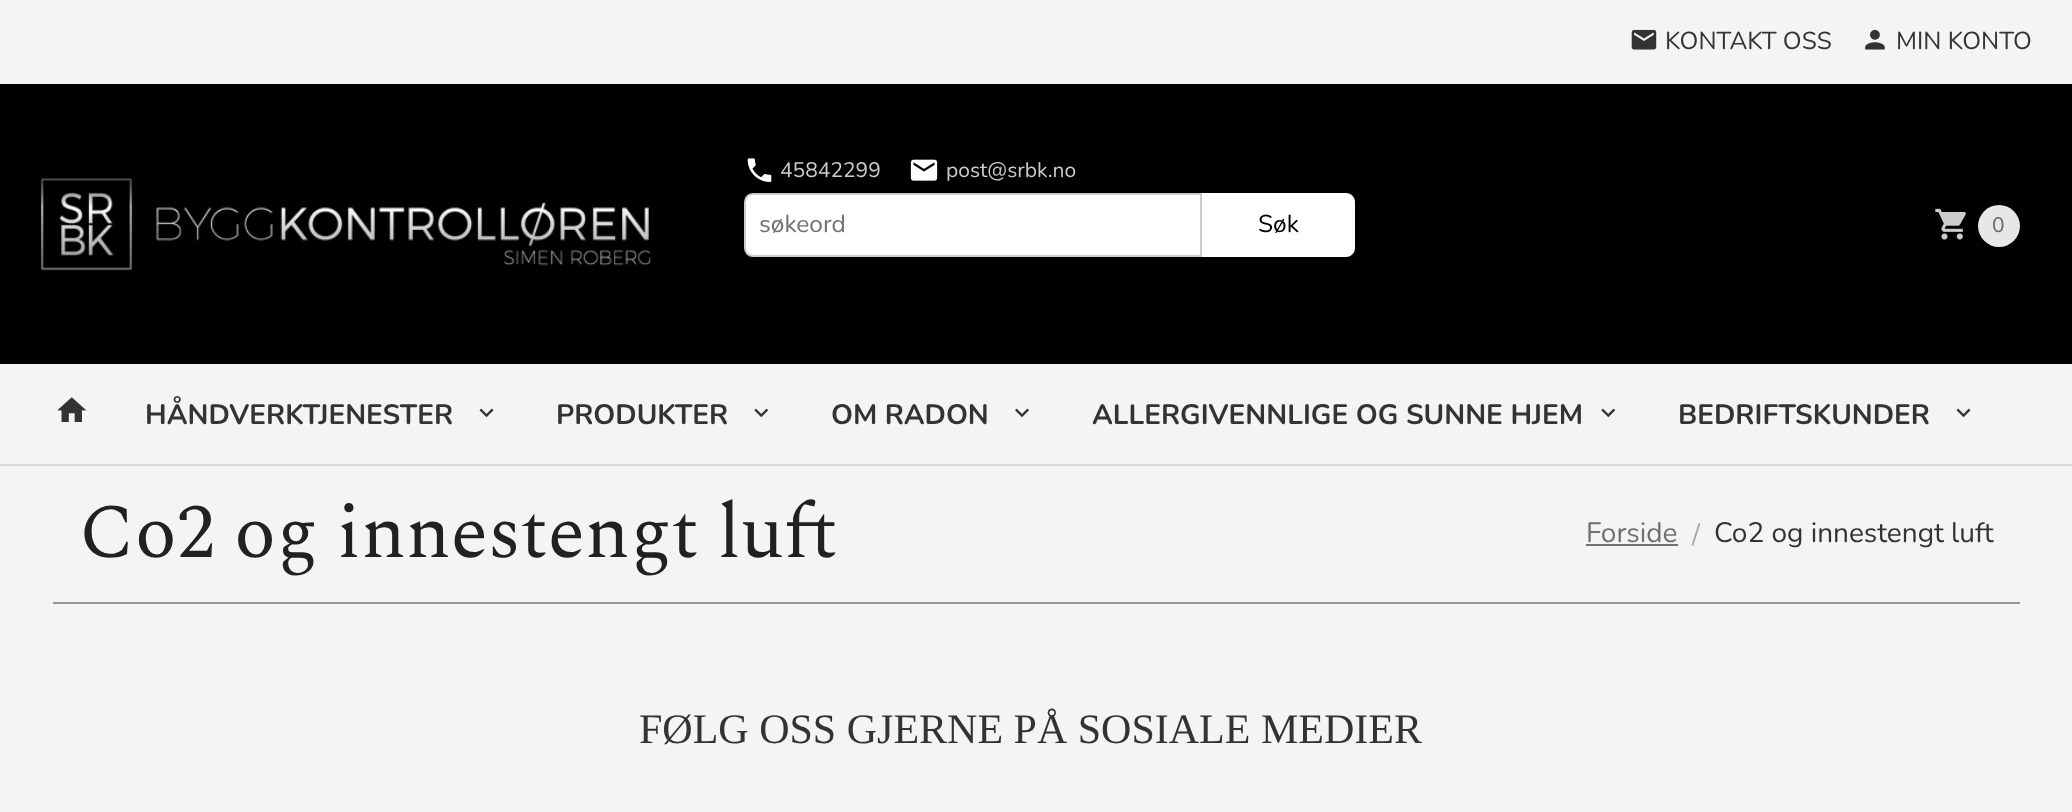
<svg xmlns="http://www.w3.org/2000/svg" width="2072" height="812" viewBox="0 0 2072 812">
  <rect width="100%" height="100%" fill="#000000"/>
  <rect x="0" y="0" width="2072" height="84" fill="#f4f4f4"/>
  <image x="1631" y="29" width="26" height="21" href="img1.png"/>
  <text x="1665" y="49" font-family="Nunito" font-size="24.5" fill="#333333">KONTAKT OSS</text>
  <image x="1865" y="29" width="20" height="21" href="img2.png"/>
  <text x="1896" y="49" font-family="Nunito" font-size="24.5" fill="#333333">MIN KONTO</text>
  <image x="40" y="178" width="611" height="93" href="img3.png"/>
  <image x="747" y="158" width="25" height="24" href="img4.png"/>
  <text x="780" y="177" font-family="Nunito" font-size="21" fill="#cccccc">45842299</text>
  <image x="910" y="159" width="28" height="22" href="img5.png"/>
  <text x="946" y="177" font-family="Nunito" font-size="21" fill="#cccccc">post@srbk.no</text>
  <path d="M753 194H1201V256H753C748.5 256 745 252.5 745 248V202C745 197.5 748.5 194 753 194Z" fill="#ffffff" stroke="#cccccc" stroke-width="2"/>
  <text x="759" y="232" font-family="Nunito" font-size="24.5" fill="#707070">søkeord</text>
  <path d="M1202 193H1346C1351 193 1355 197 1355 202V248C1355 253 1351 257 1346 257H1202Z" fill="#ffffff"/>
  <text x="1258" y="232" font-family="Nunito" font-size="24.5" fill="#000000">Søk</text>
  <image x="1935" y="208" width="31" height="32" href="img6.png"/>
  <circle cx="1999" cy="226" r="21" fill="#e7e7e7"/>
  <text x="1992" y="232" font-family="Nunito" font-size="21" fill="#666666">0</text>
  <rect x="0" y="364" width="2072" height="100" fill="#f4f4f4"/>
  <image x="57" y="397" width="30" height="25" href="img7.png"/>
  <text x="145" y="424" font-family="Nunito" font-size="28" font-weight="bold" fill="#333333">HÅNDVERKTJENESTER</text>
  <image x="479" y="408" width="15" height="10" href="img8.png"/>
  <text x="556" y="424" font-family="Nunito" font-size="28" font-weight="bold" fill="#333333">PRODUKTER</text>
  <image x="754" y="408" width="15" height="10" href="img9.png"/>
  <text x="831" y="424" font-family="Nunito" font-size="28" font-weight="bold" fill="#333333">OM RADON</text>
  <image x="1015" y="408" width="14" height="10" href="img10.png"/>
  <text x="1092" y="424" font-family="Nunito" font-size="28" font-weight="bold" fill="#333333">ALLERGIVENNLIGE OG SUNNE HJEM</text>
  <image x="1601" y="408" width="15" height="10" href="img9.png"/>
  <text x="1678" y="424" font-family="Nunito" font-size="28" font-weight="bold" fill="#333333">BEDRIFTSKUNDER</text>
  <image x="1956" y="408" width="15" height="10" href="img8.png"/>
  <rect x="0" y="466" width="2072" height="346" fill="#f4f4f4"/>
  <rect x="0" y="464" width="2072" height="2" fill="#dbdbdb"/>
  <rect x="53" y="602" width="1967" height="2" fill="#949494"/>
  <text x="79" y="557" font-family="Spectral" font-size="77" fill="#212121">Co2 og innestengt luft</text>
  <text x="1586" y="542" font-family="Nunito" font-size="28" fill="#707070">Forside</text>
  <rect x="1586" y="544" width="92" height="2" fill="#707070"/>
  <text x="1692" y="544" font-family="Nunito" font-size="28" fill="#aaaaaa">/</text>
  <text x="1714" y="542" font-family="Nunito" font-size="28" fill="#333333">Co2 og innestengt luft</text>
  <text x="639" y="743" font-family="Liberation Serif" font-size="42" fill="#333333">FØLG OSS GJERNE PÅ SOSIALE MEDIER</text>
</svg>
